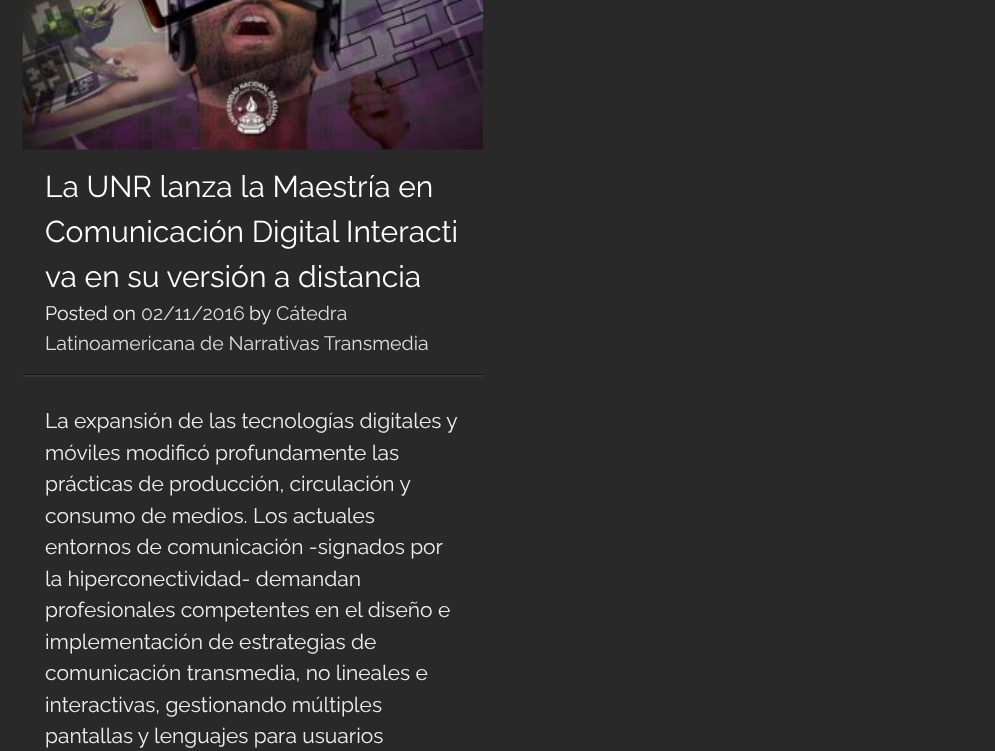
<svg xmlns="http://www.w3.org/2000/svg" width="995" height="751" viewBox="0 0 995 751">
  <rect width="100%" height="100%" fill="#292929"/>
  <image x="22" y="0" width="461" height="150" href="img1.png"/>
  <rect x="23" y="374" width="460" height="1" fill="#161616"/>
  <text x="45" y="197" font-family="Raleway" font-size="30" fill="#ffffff">La UNR lanza la Maestría en</text>
  <text x="45" y="242" font-family="Raleway" font-size="30" fill="#ffffff">Comunicación Digital Interacti</text>
  <text x="45" y="287" font-family="Raleway" font-size="30" fill="#ffffff">va en su versión a distancia</text>
  <text x="45" y="320" font-family="Raleway" font-size="19.5" fill="#eeeeee">Posted on</text>
  <text x="141" y="320" font-family="Raleway" font-size="19.5" fill="#dddddd">02/11/2016</text>
  <text x="249" y="320" font-family="Raleway" font-size="19.5" fill="#eeeeee">by</text>
  <text x="276" y="320" font-family="Raleway" font-size="19.5" fill="#dddddd">Cátedra</text>
  <text x="45" y="350" font-family="Raleway" font-size="19.5" fill="#dddddd">Latinoamericana de Narrativas Transmedia</text>
  <rect x="23" y="375" width="460" height="2" fill="#363636"/>
  <text x="45" y="428" font-family="Raleway" font-size="21" fill="#eeeeee">La expansión de las tecnologías digitales y</text>
  <text x="45" y="460" font-family="Raleway" font-size="21" fill="#eeeeee">móviles modificó profundamente las</text>
  <text x="45" y="491" font-family="Raleway" font-size="21" fill="#eeeeee">prácticas de producción, circulación y</text>
  <text x="45" y="523" font-family="Raleway" font-size="21" fill="#eeeeee">consumo de medios. Los actuales</text>
  <text x="45" y="554" font-family="Raleway" font-size="21" fill="#eeeeee">entornos de comunicación -signados por</text>
  <text x="45" y="586" font-family="Raleway" font-size="21" fill="#eeeeee">la hiperconectividad- demandan</text>
  <text x="45" y="617" font-family="Raleway" font-size="21" fill="#eeeeee">profesionales competentes en el diseño e</text>
  <text x="45" y="649" font-family="Raleway" font-size="21" fill="#eeeeee">implementación de estrategias de</text>
  <text x="45" y="680" font-family="Raleway" font-size="21" fill="#eeeeee">comunicación transmedia, no lineales e</text>
  <text x="45" y="712" font-family="Raleway" font-size="21" fill="#eeeeee">interactivas, gestionando múltiples</text>
  <text x="45" y="743" font-family="Raleway" font-size="21" fill="#eeeeee">pantallas y lenguajes para usuarios</text>
</svg>
